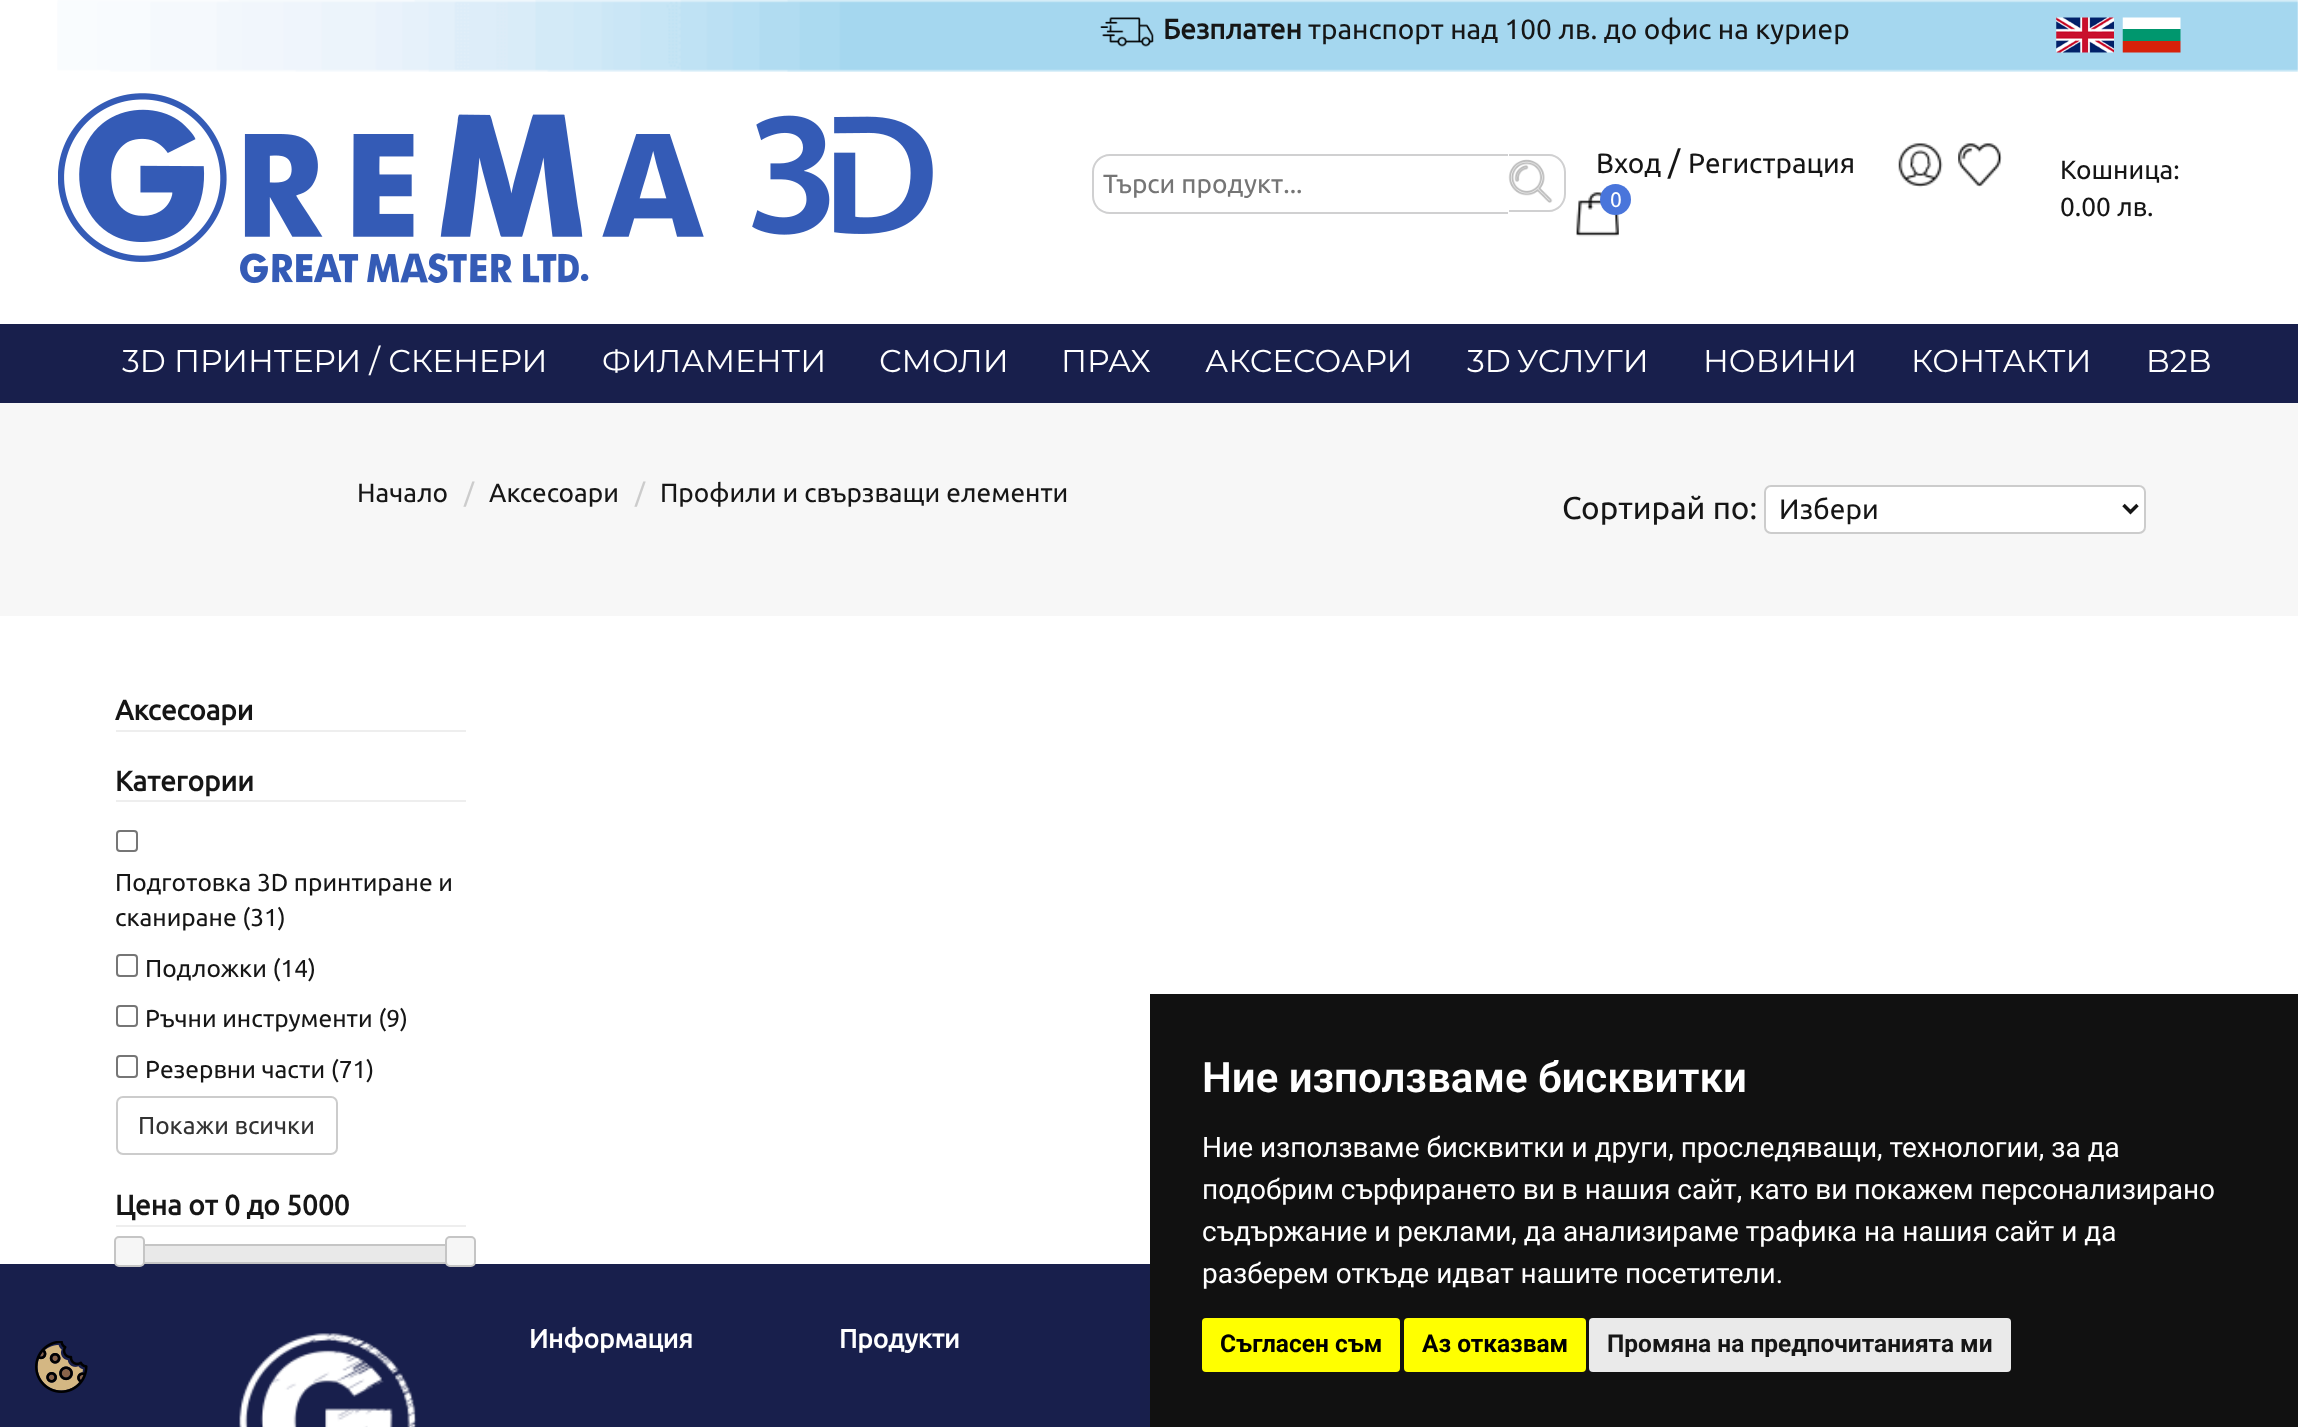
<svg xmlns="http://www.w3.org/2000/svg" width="2298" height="1427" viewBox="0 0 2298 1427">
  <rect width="100%" height="100%" fill="#ffffff"/>
  <image x="57" y="0" width="2241" height="72" href="img1.png"/>
  <image x="1100" y="17" width="54" height="30" href="img2.png"/>
  <text x="1163" y="39" font-family="Ubuntu" font-size="28" font-weight="bold" fill="#161616">Безплатен</text>
  <text x="1308" y="39" font-family="Ubuntu" font-size="28" fill="#161616">транспорт над 100 лв. до офис на куриер</text>
  <image x="2056" y="17" width="58" height="36" href="img3.png"/>
  <image x="2122" y="17" width="59" height="36" href="img4.png"/>
  <image x="58" y="93" width="875" height="191" href="img5.png"/>
  <path d="M1508 154H1549C1558 154 1566 162 1566 172V194C1566 204 1558 212 1549 212H1508ZM1508 156H1549C1557 156 1564 163 1564 172V194C1564 203 1557 210 1549 210H1508Z" fill="#d0d0d1" fill-rule="evenodd"/>
  <path d="M1110 154H1509V214H1110C1100 214 1092 206 1092 196V172C1092 162 1100 154 1110 154Z" fill="#ffffff"/>
  <path d="M1110 154H1508V214H1110C1100 214 1092 206 1092 196V172C1092 162 1100 154 1110 154ZM1110 156H1508V212H1110C1101 212 1094 205 1094 196V172C1094 163 1101 156 1110 156Z" fill="#d0d0d1" fill-rule="evenodd"/>
  <text x="1103" y="193" font-family="Ubuntu" font-size="26.25" fill="#757575">Търси продукт...</text>
  <image x="1508" y="159" width="45" height="44" href="img6.png"/>
  <text x="1596" y="173" font-family="Ubuntu" font-size="28" fill="#161616">Вход</text>
  <text x="1668" y="173" font-family="Ubuntu" font-size="31.5" fill="#161616">/</text>
  <text x="1688" y="173" font-family="Ubuntu" font-size="28" fill="#161616">Регистрация</text>
  <image x="1898" y="143" width="45" height="45" href="img7.png"/>
  <image x="1958" y="143" width="44" height="44" href="img8.png"/>
  <image x="1576" y="192" width="43" height="45" href="img9.png"/>
  <circle cx="1615.5" cy="199.5" r="15.5" fill="#4975db"/>
  <text x="1610" y="207" font-family="Ubuntu" font-size="21" fill="#ffffff">0</text>
  <text x="2060" y="179" font-family="Ubuntu" font-size="26.25" fill="#161616">Кошница:</text>
  <text x="2060" y="216" font-family="Ubuntu" font-size="26.25" fill="#161616">0.00 лв.</text>
  <rect x="0" y="324" width="2298" height="79" fill="#181f4c"/>
  <text x="122" y="372" font-family="Montserrat" font-size="31.5" fill="#ffffff">3D ПРИНТЕРИ / СКЕНЕРИ</text>
  <text x="602" y="372" font-family="Montserrat" font-size="31.5" fill="#ffffff">ФИЛАМЕНТИ</text>
  <text x="879" y="372" font-family="Montserrat" font-size="31.5" fill="#ffffff">СМОЛИ</text>
  <text x="1061" y="372" font-family="Montserrat" font-size="31.5" fill="#ffffff">ПРАХ</text>
  <text x="1205" y="372" font-family="Montserrat" font-size="31.5" fill="#ffffff">АКСЕСОАРИ</text>
  <text x="1467" y="372" word-spacing="-2" font-family="Montserrat" font-size="31.5" fill="#ffffff">3D УСЛУГИ</text>
  <text x="1703" y="372" font-family="Montserrat" font-size="31.5" fill="#ffffff">НОВИНИ</text>
  <text x="1911" y="372" font-family="Montserrat" font-size="31.5" fill="#ffffff">КОНТАКТИ</text>
  <text x="2146" y="372" font-family="Montserrat" font-size="31.5" fill="#ffffff">B2B</text>
  <rect x="0" y="403" width="2298" height="213" fill="#f7f7f7"/>
  <text x="357" y="502" font-family="Ubuntu" font-size="26.25" fill="#161616">Начало</text>
  <text x="464" y="502" font-family="Ubuntu" font-size="26.25" fill="#cccccc">/</text>
  <text x="489" y="502" font-family="Ubuntu" font-size="26.25" fill="#161616">Аксесоари</text>
  <text x="635" y="502" font-family="Ubuntu" font-size="26.25" fill="#cccccc">/</text>
  <text x="660" y="502" font-family="Ubuntu" font-size="26.25" fill="#161616">Профили и свързващи елементи</text>
  <text x="1562" y="519" font-family="Ubuntu" font-size="31.5" fill="#161616">Сортирай по:</text>
  <rect x="1765" y="486" width="380" height="47" rx="6" fill="#ffffff" stroke="#cccccc" stroke-width="2"/>
  <path d="M2123.5 505L2130.5 512L2137.5 505" fill="none" stroke="#161616" stroke-width="3.5"/>
  <text x="1779" y="519" font-family="Ubuntu" font-size="28" fill="#161616">Избери</text>
  <rect x="0" y="1264" width="1150" height="163" fill="#181f4c"/>
  <image x="35" y="1341" width="53" height="52" href="img10.png"/>
  <rect x="116" y="730" width="350" height="2" fill="#eeeeee"/>
  <text x="115" y="720" font-family="Ubuntu" font-size="28" font-weight="bold" fill="#161616">Аксесоари</text>
  <rect x="116" y="800" width="350" height="2" fill="#eeeeee"/>
  <text x="115" y="791" font-family="Ubuntu" font-size="28" font-weight="bold" fill="#161616">Категории</text>
  <rect x="117" y="831" width="20" height="20" rx="3" fill="none" stroke="#767676" stroke-width="2"/>
  <text x="115" y="891" font-family="Ubuntu" font-size="24.5" fill="#161616">Подготовка 3D принтиране и</text>
  <text x="115" y="926" font-family="Ubuntu" font-size="24.5" fill="#161616">сканиране (31)</text>
  <rect x="117" y="955" width="20" height="21" rx="3" fill="none" stroke="#767676" stroke-width="2"/>
  <text x="145" y="977" font-family="Ubuntu" font-size="24.5" fill="#161616">Подложки (14)</text>
  <rect x="117" y="1006" width="20" height="20" rx="3" fill="none" stroke="#767676" stroke-width="2"/>
  <text x="145" y="1027" font-family="Ubuntu" font-size="24.5" fill="#161616">Ръчни инструменти (9)</text>
  <rect x="117" y="1056" width="20" height="21" rx="3" fill="none" stroke="#767676" stroke-width="2"/>
  <text x="145" y="1078" font-family="Ubuntu" font-size="24.5" fill="#161616">Резервни части (71)</text>
  <rect x="117" y="1097" width="220" height="57" rx="6" fill="none" stroke="#cccccc" stroke-width="2"/>
  <text x="138" y="1134" font-family="Ubuntu" font-size="24.5" fill="#333333">Покажи всички</text>
  <rect x="116" y="1225" width="350" height="2" fill="#eeeeee"/>
  <text x="115" y="1215" font-family="Ubuntu" font-size="28" font-weight="bold" fill="#161616">Цена от 0 до 5000</text>
  <rect x="132" y="1245" width="333" height="18" fill="none" stroke="#c5c5c5" stroke-width="2"/>
  <rect x="115" y="1237" width="29" height="29" rx="4" fill="#f6f6f6" stroke="#c5c5c5" stroke-width="2"/>
  <rect x="145" y="1246" width="300" height="16" fill="#e9e9e9"/>
  <rect x="446" y="1237" width="29" height="29" rx="4" fill="#f6f6f6" stroke="#c5c5c5" stroke-width="2"/>
  <image x="239" y="1333" width="178" height="94" href="img11.png"/>
  <text x="529" y="1348" font-family="Ubuntu" font-size="26.25" font-weight="bold" fill="#ffffff">Информация</text>
  <text x="839" y="1348" font-family="Ubuntu" font-size="26.25" font-weight="bold" fill="#ffffff">Продукти</text>
  <rect x="1150" y="994" width="1148" height="433" fill="#111111"/>
  <text x="1202" y="1092" font-family="Roboto" font-size="42" font-weight="600" fill="#ffffff">Ние използваме бисквитки</text>
  <text x="1202" y="1157" font-family="Roboto" font-size="28" fill="#ffffff">Ние използваме бисквитки и други, проследяващи, технологии, за да</text>
  <text x="1202" y="1199" font-family="Roboto" font-size="28" fill="#ffffff">подобрим сърфирането ви в нашия сайт, като ви покажем персонализирано</text>
  <text x="1202" y="1241" font-family="Roboto" font-size="28" fill="#ffffff">съдържание и реклами, да анализираме трафика на нашия сайт и да</text>
  <text x="1202" y="1283" font-family="Roboto" font-size="28" fill="#ffffff">разберем откъде идват нашите посетители.</text>
  <rect x="1202" y="1318" width="198" height="54" rx="4" fill="#ffff00"/>
  <text x="1220" y="1352" font-family="Roboto" font-size="24.5" font-weight="bold" fill="#000000">Съгласен съм</text>
  <rect x="1404" y="1318" width="182" height="54" rx="4" fill="#ffff00"/>
  <text x="1422" y="1352" font-family="Roboto" font-size="24.5" font-weight="bold" fill="#000000">Аз отказвам</text>
  <rect x="1589" y="1318" width="422" height="54" rx="4" fill="#eaeaea"/>
  <text x="1607" y="1352" font-family="Roboto" font-size="24.5" font-weight="bold" fill="#161616">Промяна на предпочитанията ми</text>
</svg>
